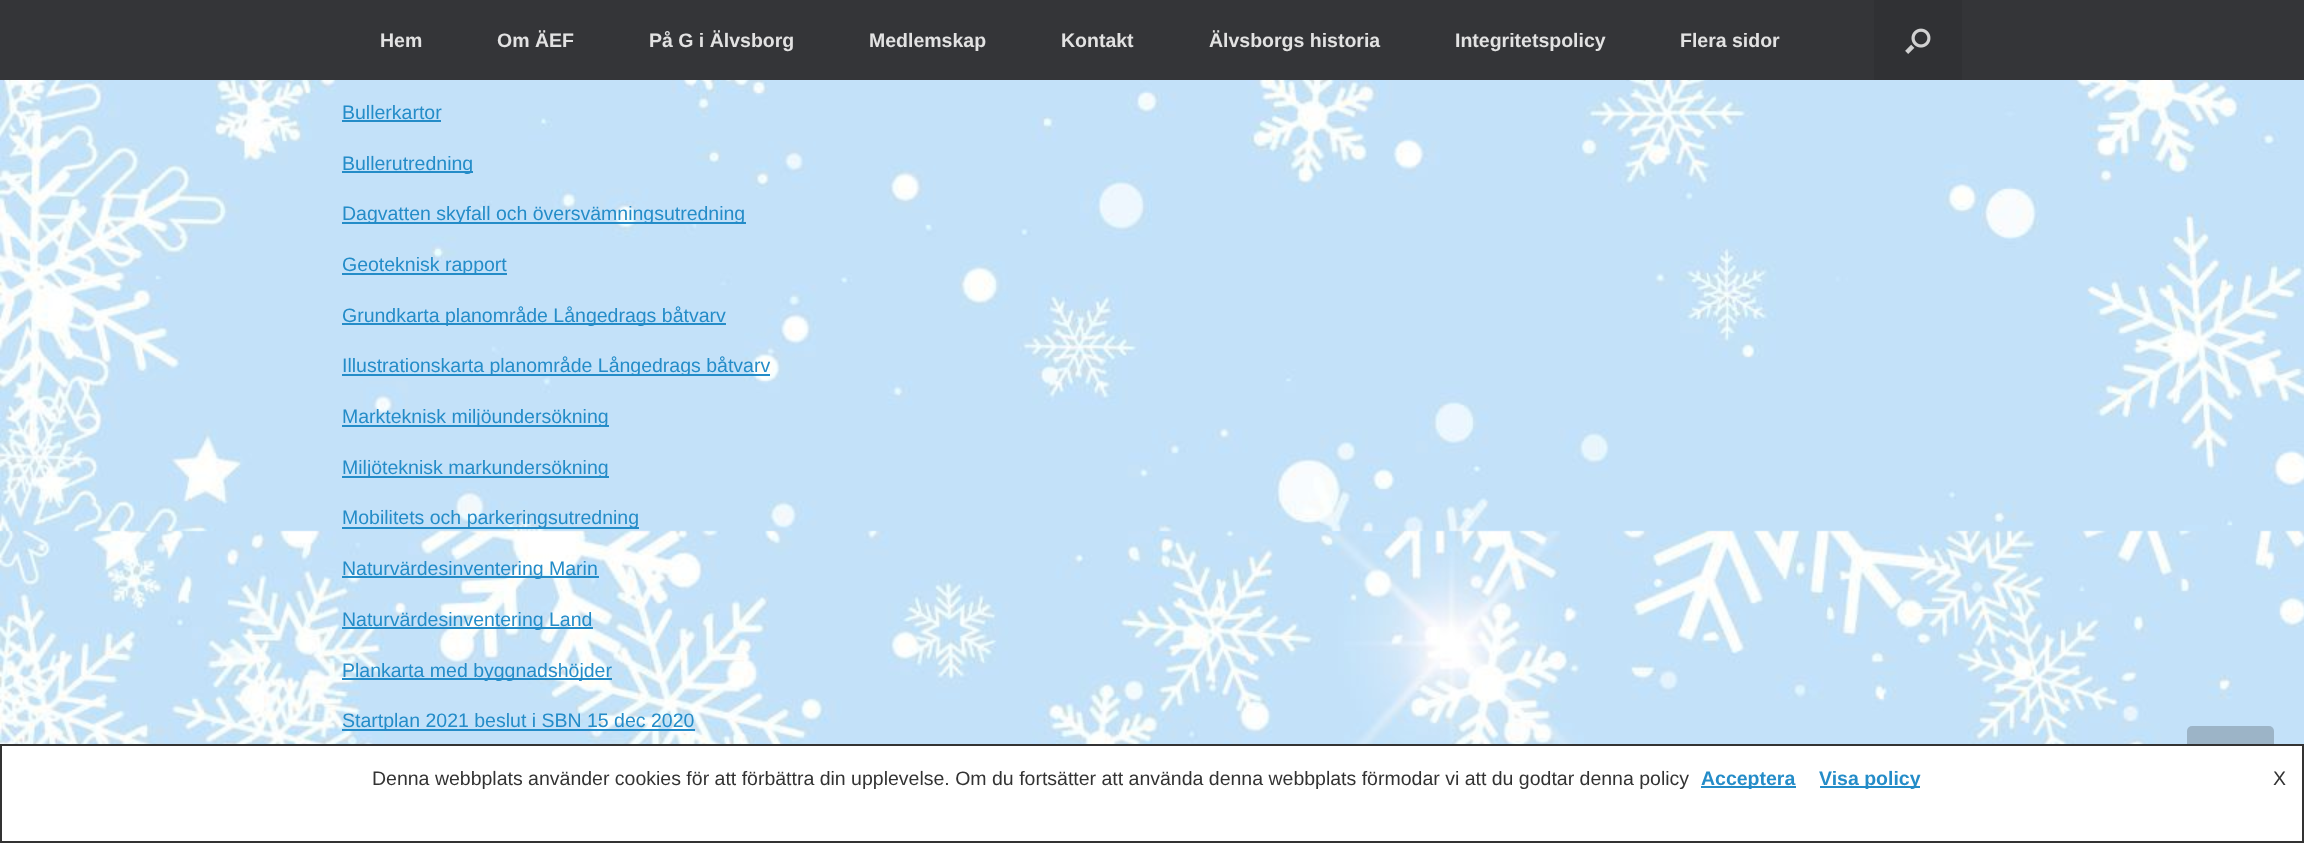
<svg xmlns="http://www.w3.org/2000/svg" width="2304" height="843" viewBox="0 0 2304 843">
  <rect width="100%" height="100%" fill="#ffffff"/>
  <rect x="0" y="0" width="2304" height="80" fill="#343538"/>
  <text x="380" y="47" font-family="Liberation Sans" font-size="19.5" font-weight="bold" fill="#e2e2e2">Hem</text>
  <text x="497" y="47" font-family="Liberation Sans" font-size="19.5" font-weight="bold" fill="#e2e2e2">Om ÄEF</text>
  <text x="649" y="47" font-family="Liberation Sans" font-size="19.5" font-weight="bold" fill="#e2e2e2">På G i Älvsborg</text>
  <text x="869" y="47" font-family="Liberation Sans" font-size="19.5" font-weight="bold" fill="#e2e2e2">Medlemskap</text>
  <text x="1061" y="47" font-family="Liberation Sans" font-size="19.5" font-weight="bold" fill="#e2e2e2">Kontakt</text>
  <text x="1209" y="47" font-family="Liberation Sans" font-size="19.5" font-weight="bold" fill="#e2e2e2">Älvsborgs historia</text>
  <text x="1455" y="47" font-family="Liberation Sans" font-size="19.5" font-weight="bold" fill="#e2e2e2">Integritetspolicy</text>
  <text x="1680" y="47" font-family="Liberation Sans" font-size="19.5" font-weight="bold" fill="#e2e2e2">Flera sidor</text>
  <rect x="1874" y="0" width="88" height="80" fill="#303134"/>
  <image x="1905" y="28" width="26" height="26" href="img1.png"/>
  <image x="0" y="80" width="2304" height="664" href="img2.png"/>
  <text x="342" y="119" font-family="Liberation Sans" font-size="19.5" fill="#248cc8">Bullerkartor</text>
  <rect x="342" y="120" width="99" height="2" fill="#248cc8"/>
  <rect x="342" y="171" width="131" height="2" fill="#248cc8"/>
  <text x="342" y="170" font-family="Liberation Sans" font-size="19.5" fill="#248cc8">Bullerutredning</text>
  <rect x="342" y="222" width="404" height="2" fill="#248cc8"/>
  <text x="342" y="220" font-family="Liberation Sans" font-size="19.5" fill="#248cc8">Dagvatten skyfall och översvämningsutredning</text>
  <rect x="342" y="273" width="165" height="2" fill="#248cc8"/>
  <text x="342" y="271" font-family="Liberation Sans" font-size="19.5" fill="#248cc8">Geoteknisk rapport</text>
  <rect x="342" y="323" width="384" height="2" fill="#248cc8"/>
  <text x="342" y="322" font-family="Liberation Sans" font-size="19.5" fill="#248cc8">Grundkarta planområde Långedrags båtvarv</text>
  <rect x="342" y="374" width="428" height="2" fill="#248cc8"/>
  <text x="342" y="372" font-family="Liberation Sans" font-size="19.5" fill="#248cc8">Illustrationskarta planområde Långedrags båtvarv</text>
  <rect x="342" y="425" width="267" height="2" fill="#248cc8"/>
  <text x="342" y="423" font-family="Liberation Sans" font-size="19.5" fill="#248cc8">Markteknisk miljöundersökning</text>
  <rect x="342" y="476" width="267" height="2" fill="#248cc8"/>
  <text x="342" y="474" font-family="Liberation Sans" font-size="19.5" fill="#248cc8">Miljöteknisk markundersökning</text>
  <rect x="342" y="527" width="297" height="2" fill="#248cc8"/>
  <text x="342" y="524" font-family="Liberation Sans" font-size="19.5" fill="#248cc8">Mobilitets och parkeringsutredning</text>
  <rect x="342" y="576" width="257" height="2" fill="#248cc8"/>
  <text x="342" y="575" font-family="Liberation Sans" font-size="19.5" fill="#248cc8">Naturvärdesinventering Marin</text>
  <rect x="342" y="627" width="251" height="2" fill="#248cc8"/>
  <text x="342" y="626" font-family="Liberation Sans" font-size="19.5" fill="#248cc8">Naturvärdesinventering Land</text>
  <rect x="342" y="678" width="270" height="2" fill="#248cc8"/>
  <text x="342" y="677" font-family="Liberation Sans" font-size="19.5" fill="#248cc8">Plankarta med byggnadshöjder</text>
  <rect x="342" y="729" width="353" height="2" fill="#248cc8"/>
  <text x="342" y="727" font-family="Liberation Sans" font-size="19.5" fill="#248cc8">Startplan 2021 beslut i SBN 15 dec 2020</text>
  <rect x="2187" y="726" width="87" height="87" rx="5" fill="#000000" fill-opacity="0.2"/>
  <rect x="2187" y="746" width="87" height="67" fill="#ffffff"/>
  <rect x="1" y="745" width="2302" height="97" fill="none" stroke="#333333" stroke-width="2"/>
  <text x="372" y="785" font-family="Liberation Sans" font-size="19.5" fill="#333333">Denna webbplats använder cookies för att förbättra din upplevelse. Om du fortsätter att använda denna webbplats förmodar vi att du godtar denna policy</text>
  <rect x="1701" y="786" width="95" height="2" fill="#248cc8"/>
  <text x="1701" y="785" font-family="Liberation Sans" font-size="19.5" font-weight="bold" fill="#248cc8">Acceptera</text>
  <rect x="1820" y="786" width="100" height="2" fill="#248cc8"/>
  <text x="1819" y="785" font-family="Liberation Sans" font-size="19.5" font-weight="bold" fill="#248cc8">Visa policy</text>
  <text x="2273" y="785" font-family="Liberation Sans" font-size="19.5" fill="#333333">X</text>
</svg>
